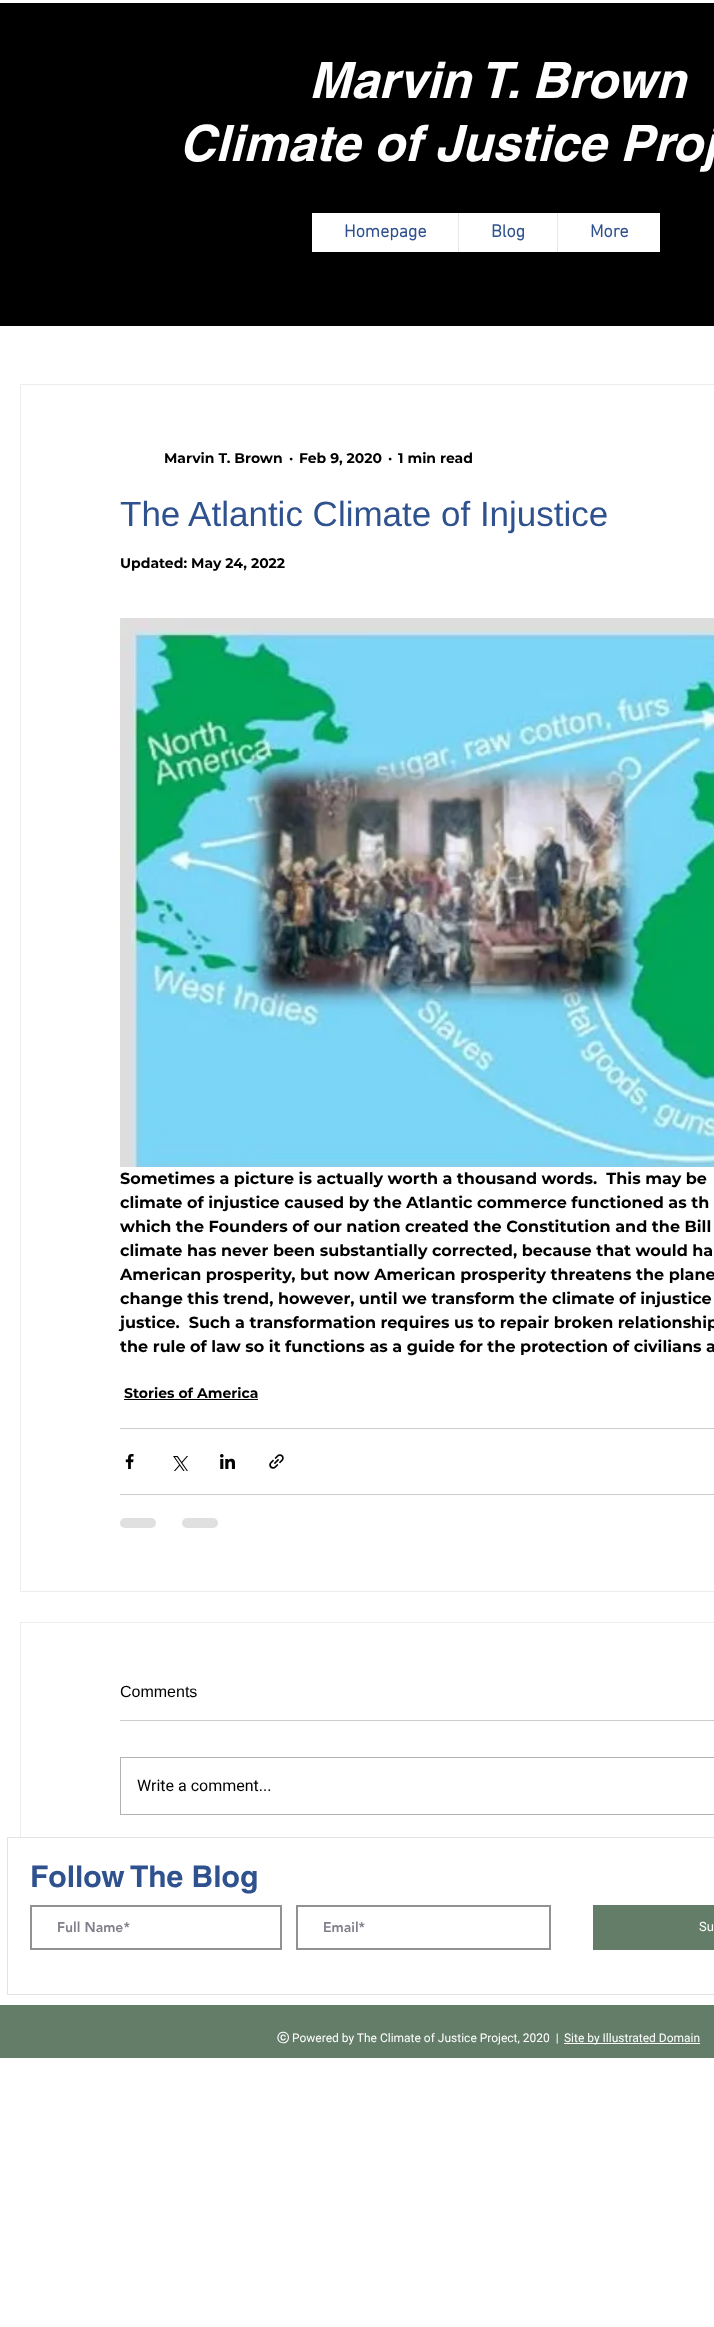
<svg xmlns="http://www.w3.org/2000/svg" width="714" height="2327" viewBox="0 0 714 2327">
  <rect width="100%" height="100%" fill="#ffffff"/>
  <rect x="0" y="3" width="714" height="323" fill="#000000"/>
  <text x="309" y="98" font-family="helvetica" font-size="50" font-weight="bold" font-style="italic" fill="#ffffff">Marvin T. Brown</text>
  <text x="179" y="161" font-family="helvetica" font-size="50" font-weight="bold" font-style="italic" fill="#ffffff">Climate of Justice Proj</text>
  <rect x="312" y="213" width="348" height="39" fill="#ffffff"/>
  <text x="344" y="237" font-family="'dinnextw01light'" font-size="18" font-weight="bold" fill="#2f528f">Homepage</text>
  <rect x="458" y="213" width="1" height="39" fill="#e8e6e6"/>
  <text x="491" y="237" font-family="'dinnextw01light'" font-size="18" font-weight="bold" fill="#2f528f">Blog</text>
  <rect x="557" y="213" width="1" height="39" fill="#e8e6e6"/>
  <text x="590" y="237" font-family="'dinnextw01light'" font-size="18" font-weight="bold" fill="#2f528f">More</text>
  <rect x="20.5" y="384.5" width="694" height="1207" fill="none" stroke="#eeecec"/>
  <text x="164" y="463" font-family="Montserrat" font-size="14" font-weight="bold" fill="#000000">Marvin T. Brown</text>
  <text x="289" y="463" font-family="Montserrat" font-size="14" font-weight="bold" fill="#000000">·</text>
  <text x="299" y="463" font-family="Montserrat" font-size="14" font-weight="bold" fill="#000000">Feb 9, 2020</text>
  <text x="388" y="463" font-family="Montserrat" font-size="14" font-weight="bold" fill="#000000">·</text>
  <text x="398" y="463" font-family="Montserrat" font-size="14" font-weight="bold" fill="#000000">1 min read</text>
  <text x="120" y="526" font-family="Liberation Sans" font-size="35" fill="#2f528f">The Atlantic Climate of Injustice</text>
  <text x="120" y="568" font-family="Montserrat" font-size="14" font-weight="bold" fill="#000000">Updated: May 24, 2022</text>
  <image x="120" y="618" width="594" height="549" href="img1.png"/>
  <text x="120" y="1184" font-family="Montserrat" font-size="16" font-weight="bold" fill="#000000" xml:space="preserve">Sometimes a picture is actually worth a thousand words.  This may be</text>
  <text x="120" y="1208" font-family="Montserrat" font-size="16" font-weight="bold" fill="#000000">climate of injustice caused by the Atlantic commerce functioned as th</text>
  <text x="120" y="1232" font-family="Montserrat" font-size="16" font-weight="bold" fill="#000000">which the Founders of our nation created the Constitution and the Bill</text>
  <text x="120" y="1256" font-family="Montserrat" font-size="16" font-weight="bold" fill="#000000">climate has never been substantially corrected, because that would ha</text>
  <text x="120" y="1280" font-family="Montserrat" font-size="16" font-weight="bold" fill="#000000">American prosperity, but now American prosperity threatens the plane</text>
  <text x="120" y="1304" font-family="Montserrat" font-size="16" font-weight="bold" fill="#000000">change this trend, however, until we transform the climate of injustice</text>
  <text x="120" y="1328" font-family="Montserrat" font-size="16" font-weight="bold" fill="#000000" xml:space="preserve">justice.  Such a transformation requires us to repair broken relationship</text>
  <text x="120" y="1352" font-family="Montserrat" font-size="16" font-weight="bold" fill="#000000">the rule of law so it functions as a guide for the protection of civilians a</text>
  <text x="124" y="1398" font-family="Montserrat" font-size="14" font-weight="bold" fill="#000000">Stories of America</text>
  <rect x="124" y="1399" width="134" height="1" fill="#000000"/>
  <rect x="120" y="1428" width="594" height="1" fill="#cccccc"/>
  <image x="125" y="1454" width="9" height="15" href="img2.png"/>
  <image x="173" y="1456" width="15" height="15" href="img3.png"/>
  <image x="220" y="1454" width="15" height="15" href="img4.png"/>
  <image x="269" y="1454" width="15" height="15" href="img5.png"/>
  <rect x="120" y="1494" width="594" height="1" fill="#cccccc"/>
  <rect x="120" y="1518" width="36" height="10" rx="5" fill="#e0e0e0"/>
  <rect x="182" y="1518" width="36" height="10" rx="5" fill="#e0e0e0"/>
  <rect x="20.5" y="1622.5" width="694" height="258" fill="none" stroke="#eeecec"/>
  <text x="120" y="1697" font-family="Liberation Sans" font-size="16" fill="#000000">Comments</text>
  <rect x="120" y="1720" width="594" height="1" fill="#cccccc"/>
  <rect x="120.5" y="1757.5" width="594" height="57" fill="none" stroke="#b3b3b3"/>
  <text x="137" y="1791" font-family="Roboto" font-size="16" fill="#000000">Write a comment...</text>
  <rect x="20" y="1838" width="694" height="43" fill="#ffffff"/>
  <rect x="7.5" y="1837.5" width="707" height="157" fill="none" stroke="#e3e3e3"/>
  <text x="30" y="1887" font-family="helvetica" font-size="30" font-weight="bold" fill="#2f528f">Follow The Blog</text>
  <rect x="31" y="1906" width="250" height="43" fill="none" stroke="#919191" stroke-width="2"/>
  <text x="57" y="1932" font-family="'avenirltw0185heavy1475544'" font-size="14" font-weight="900" fill="#7f808a">Full Name*</text>
  <rect x="297" y="1906" width="253" height="43" fill="none" stroke="#919191" stroke-width="2"/>
  <text x="323" y="1932" font-family="'avenirltw0185heavy1475544'" font-size="14" font-weight="900" fill="#7f808a">Email*</text>
  <rect x="593" y="1905" width="121" height="45" fill="#637d69"/>
  <text x="699" y="1931" font-family="Roboto" font-size="13" fill="#ffffff">Su</text>
  <rect x="0" y="2005" width="714" height="53" fill="#637d69"/>
  <text x="277" y="2042" font-family="WenQuanYi Zen Hei" font-size="12" font-weight="bold" fill="#ffffff">ⓒ</text>
  <text x="292" y="2042" font-family="Roboto" font-size="12" fill="#ffffff" xml:space="preserve">Powered by The Climate of Justice Project, 2020  |</text>
  <rect x="564" y="2043" width="136" height="1" fill="#ffffff"/>
  <text x="564" y="2042" font-family="Roboto" font-size="12" fill="#ffffff">Site by Illustrated Domain</text>
</svg>
